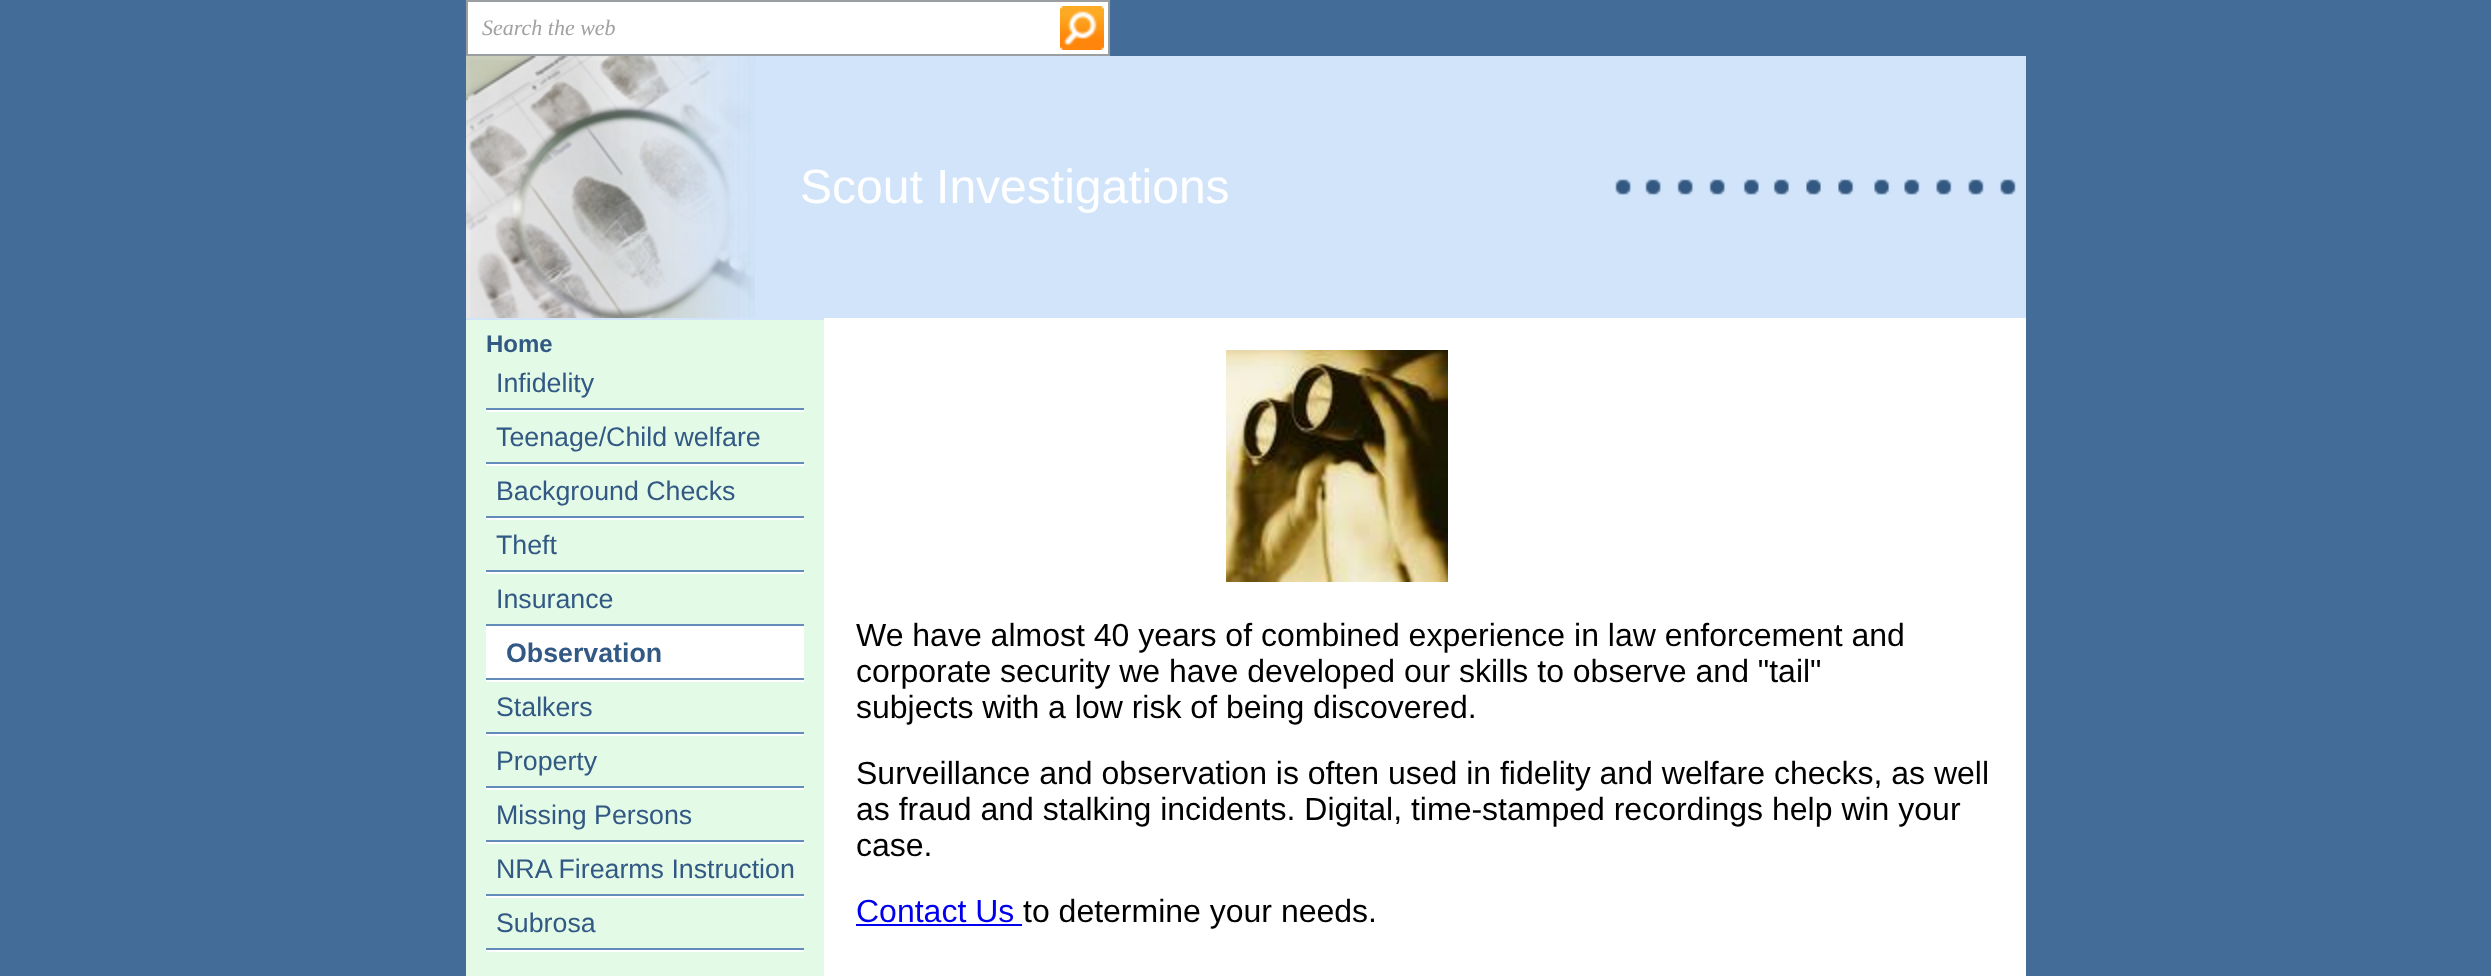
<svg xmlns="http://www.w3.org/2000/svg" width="2491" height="976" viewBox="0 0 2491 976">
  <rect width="100%" height="100%" fill="#436c99"/>
  <rect x="468" y="2" width="640" height="52" fill="#ffffff"/>
  <rect x="466" y="0" width="644" height="2" fill="#9b9fa2"/>
  <rect x="466" y="54" width="590" height="2" fill="#9b9fa2"/>
  <rect x="466" y="0" width="2" height="56" fill="#9b9fa2"/>
  <text x="482" y="35" font-family="Liberation Serif" font-size="22" font-style="italic" fill="#a1a1a1">Search the web</text>
  <rect x="1108" y="0" width="2" height="56" fill="#9b9fa2"/>
  <rect x="1056" y="54" width="54" height="2" fill="#9b9fa2"/>
  <image x="1060" y="6" width="44" height="44" href="img1.png"/>
  <rect x="755" y="56" width="1271" height="262" fill="#d1e4fa"/>
  <image x="466" y="56" width="289" height="262" href="img2.png"/>
  <text x="800" y="203" font-family="Liberation Sans" font-size="48" fill="#ffffff">Scout Investigations</text>
  <image x="1615" y="179" width="401" height="17" href="img3.png"/>
  <rect x="466" y="318" width="358" height="2" fill="#d1e4fa"/>
  <rect x="466" y="320" width="358" height="656" fill="#e3fae7"/>
  <text x="486" y="352" font-family="Liberation Sans" font-size="24" font-weight="bold" fill="#325884">Home</text>
  <text x="496" y="392" font-family="Liberation Sans" font-size="26.75" fill="#325884">Infidelity</text>
  <rect x="486" y="408" width="318" height="2" fill="#638cbb"/>
  <rect x="486" y="410" width="318" height="2" fill="#ffffff"/>
  <text x="496" y="446" font-family="Liberation Sans" font-size="26.75" fill="#325884">Teenage/Child welfare</text>
  <rect x="486" y="462" width="318" height="2" fill="#638cbb"/>
  <rect x="486" y="464" width="318" height="2" fill="#ffffff"/>
  <text x="496" y="500" font-family="Liberation Sans" font-size="26.75" fill="#325884">Background Checks</text>
  <rect x="486" y="516" width="318" height="2" fill="#638cbb"/>
  <rect x="486" y="518" width="318" height="2" fill="#ffffff"/>
  <text x="496" y="554" font-family="Liberation Sans" font-size="26.75" fill="#325884">Theft</text>
  <rect x="486" y="570" width="318" height="2" fill="#638cbb"/>
  <rect x="486" y="572" width="318" height="2" fill="#ffffff"/>
  <text x="496" y="608" font-family="Liberation Sans" font-size="26.75" fill="#325884">Insurance</text>
  <rect x="486" y="624" width="318" height="2" fill="#638cbb"/>
  <rect x="486" y="626" width="318" height="52" fill="#ffffff"/>
  <text x="506" y="662" font-family="Liberation Sans" font-size="26.75" font-weight="bold" fill="#325884">Observation</text>
  <rect x="486" y="678" width="318" height="2" fill="#638cbb"/>
  <rect x="486" y="680" width="318" height="2" fill="#ffffff"/>
  <text x="496" y="716" font-family="Liberation Sans" font-size="26.75" fill="#325884">Stalkers</text>
  <rect x="486" y="732" width="318" height="2" fill="#638cbb"/>
  <rect x="486" y="734" width="318" height="2" fill="#ffffff"/>
  <text x="496" y="770" font-family="Liberation Sans" font-size="26.75" fill="#325884">Property</text>
  <rect x="486" y="786" width="318" height="2" fill="#638cbb"/>
  <rect x="486" y="788" width="318" height="2" fill="#ffffff"/>
  <text x="496" y="824" font-family="Liberation Sans" font-size="26.75" fill="#325884">Missing Persons</text>
  <rect x="486" y="840" width="318" height="2" fill="#638cbb"/>
  <rect x="486" y="842" width="318" height="2" fill="#ffffff"/>
  <text x="496" y="878" font-family="Liberation Sans" font-size="26.75" fill="#325884">NRA Firearms Instruction</text>
  <rect x="486" y="894" width="318" height="2" fill="#638cbb"/>
  <rect x="486" y="896" width="318" height="2" fill="#ffffff"/>
  <text x="496" y="932" font-family="Liberation Sans" font-size="26.75" fill="#325884">Subrosa</text>
  <rect x="486" y="948" width="318" height="2" fill="#638cbb"/>
  <rect x="486" y="950" width="318" height="2" fill="#ffffff"/>
  <rect x="824" y="318" width="1202" height="658" fill="#ffffff"/>
  <image x="1226" y="350" width="222" height="232" href="img4.png"/>
  <text x="856" y="646" font-family="Liberation Sans" font-size="32" fill="#000000">We have almost 40 years of combined experience in law enforcement and</text>
  <text x="856" y="682" font-family="Liberation Sans" font-size="32" fill="#000000">corporate security we have developed our skills to observe and "tail"</text>
  <text x="856" y="718" font-family="Liberation Sans" font-size="32" fill="#000000">subjects with a low risk of being discovered.</text>
  <text x="856" y="784" font-family="Liberation Sans" font-size="32" fill="#000000">Surveillance and observation is often used in fidelity and welfare checks, as well</text>
  <text x="856" y="820" font-family="Liberation Sans" font-size="32" fill="#000000">as fraud and stalking incidents. Digital, time-stamped recordings help win your</text>
  <text x="856" y="856" font-family="Liberation Sans" font-size="32" fill="#000000">case.</text>
  <text x="856" y="922" font-family="Liberation Sans" font-size="32" fill="#0000ee">Contact Us</text>
  <rect x="856" y="924" width="166" height="2" fill="#0000ee"/>
  <text x="1023" y="922" font-family="Liberation Sans" font-size="32" fill="#000000">to determine your needs.</text>
</svg>
